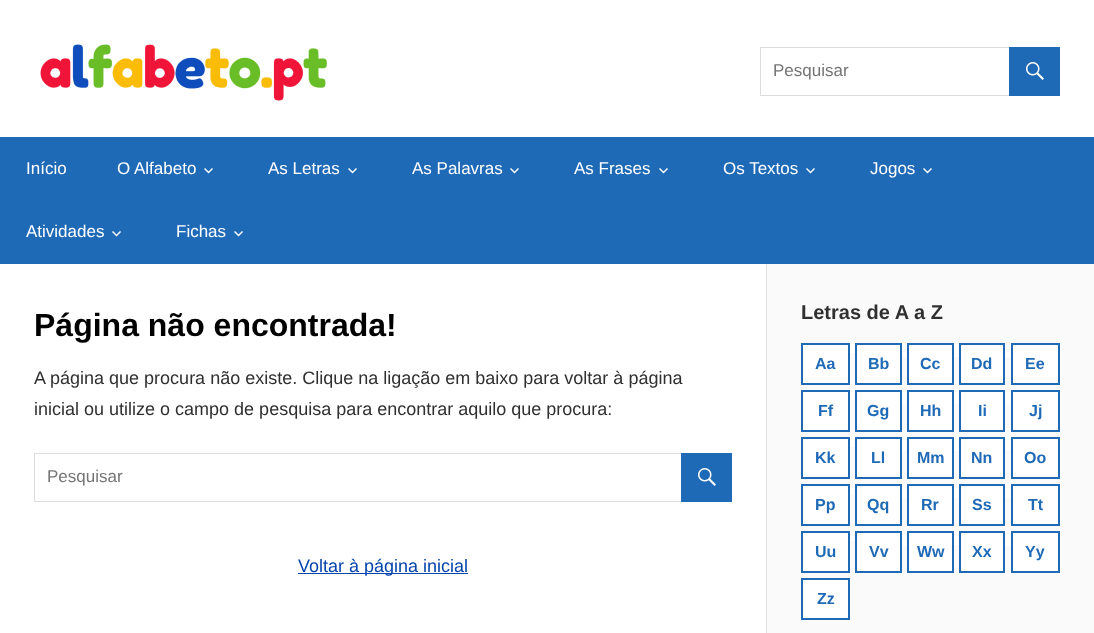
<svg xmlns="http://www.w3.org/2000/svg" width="1094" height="633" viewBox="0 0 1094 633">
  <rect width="100%" height="100%" fill="#ffffff"/>
  <image x="40" y="44" width="288" height="57" href="img1.png"/>
  <rect x="760.5" y="47.5" width="299" height="48" fill="none" stroke="#dddddd"/>
  <text x="773" y="76" font-family="Liberation Sans" font-size="17" fill="#757575">Pesquisar</text>
  <rect x="1009" y="47" width="51" height="49" fill="#1f6ab6"/>
  <image x="1026" y="62" width="18" height="18" href="img2.png"/>
  <rect x="0" y="137" width="1094" height="127" fill="#1f6ab6"/>
  <text x="26" y="174" font-family="Liberation Sans" font-size="17" fill="#ffffff">Início</text>
  <text x="117" y="174" font-family="Liberation Sans" font-size="17" fill="#ffffff">O Alfabeto</text>
  <image x="204" y="168" width="9" height="6" href="img3.png"/>
  <text x="268" y="174" font-family="Liberation Sans" font-size="17" fill="#ffffff">As Letras</text>
  <image x="348" y="168" width="9" height="6" href="img3.png"/>
  <text x="412" y="174" font-family="Liberation Sans" font-size="17" fill="#ffffff">As Palavras</text>
  <image x="510" y="168" width="9" height="6" href="img3.png"/>
  <text x="574" y="174" font-family="Liberation Sans" font-size="17" fill="#ffffff">As Frases</text>
  <image x="659" y="168" width="9" height="6" href="img3.png"/>
  <text x="723" y="174" font-family="Liberation Sans" font-size="17" fill="#ffffff">Os Textos</text>
  <image x="806" y="168" width="9" height="6" href="img3.png"/>
  <text x="870" y="174" font-family="Liberation Sans" font-size="17" fill="#ffffff">Jogos</text>
  <image x="923" y="168" width="9" height="6" href="img3.png"/>
  <text x="26" y="237" font-family="Liberation Sans" font-size="17" fill="#ffffff">Atividades</text>
  <image x="112" y="231" width="9" height="6" href="img3.png"/>
  <text x="176" y="237" font-family="Liberation Sans" font-size="17" fill="#ffffff">Fichas</text>
  <image x="234" y="231" width="9" height="6" href="img3.png"/>
  <text x="34" y="336" font-family="Liberation Sans" font-size="32" font-weight="bold" fill="#000000">Página não encontrada!</text>
  <text x="34" y="384" font-family="Liberation Sans" font-size="18" fill="#303030">A página que procura não existe. Clique na ligação em baixo para voltar à página</text>
  <text x="34" y="415" font-family="Liberation Sans" font-size="18" fill="#303030">inicial ou utilize o campo de pesquisa para encontrar aquilo que procura:</text>
  <rect x="34.5" y="453.5" width="697" height="48" fill="none" stroke="#dddddd"/>
  <text x="47" y="482" font-family="Liberation Sans" font-size="17" fill="#757575">Pesquisar</text>
  <rect x="681" y="453" width="51" height="49" fill="#1f6ab6"/>
  <image x="698" y="468" width="18" height="18" href="img2.png"/>
  <rect x="298" y="573" width="170" height="1" fill="#0645ad"/>
  <text x="298" y="572" font-family="Liberation Sans" font-size="18" fill="#0645ad">Voltar à página inicial</text>
  <rect x="767" y="264" width="327" height="369" fill="#fafafa"/>
  <rect x="766" y="264" width="1" height="369" fill="#dddddd"/>
  <text x="801" y="319" font-family="Liberation Sans" font-size="20" font-weight="bold" fill="#303030">Letras de A a Z</text>
  <rect x="850" y="343" width="5" height="10" fill="#ffffff"/>
  <rect x="902" y="343" width="5" height="14" fill="#ffffff"/>
  <rect x="954" y="343" width="5" height="14" fill="#ffffff"/>
  <rect x="1005" y="343" width="6" height="14" fill="#ffffff"/>
  <rect x="802" y="344" width="47" height="40" fill="#ffffff" stroke="#1f6ab6" stroke-width="2"/>
  <text x="815" y="369" font-family="Liberation Sans" font-size="16" font-weight="bold" fill="#1f6ab6">Aa</text>
  <rect x="856" y="344" width="45" height="40" fill="#ffffff" stroke="#1f6ab6" stroke-width="2"/>
  <text x="868" y="369" font-family="Liberation Sans" font-size="16" font-weight="bold" fill="#1f6ab6">Bb</text>
  <rect x="908" y="344" width="45" height="40" fill="#ffffff" stroke="#1f6ab6" stroke-width="2"/>
  <text x="920" y="369" font-family="Liberation Sans" font-size="16" font-weight="bold" fill="#1f6ab6">Cc</text>
  <rect x="960" y="344" width="44" height="40" fill="#ffffff" stroke="#1f6ab6" stroke-width="2"/>
  <text x="971" y="369" font-family="Liberation Sans" font-size="16" font-weight="bold" fill="#1f6ab6">Dd</text>
  <rect x="1012" y="344" width="47" height="40" fill="#ffffff" stroke="#1f6ab6" stroke-width="2"/>
  <text x="1025" y="369" font-family="Liberation Sans" font-size="16" font-weight="bold" fill="#1f6ab6">Ee</text>
  <rect x="850" y="390" width="5" height="10" fill="#ffffff"/>
  <rect x="902" y="390" width="5" height="14" fill="#ffffff"/>
  <rect x="954" y="390" width="5" height="14" fill="#ffffff"/>
  <rect x="1005" y="390" width="6" height="14" fill="#ffffff"/>
  <rect x="802" y="391" width="47" height="40" fill="#ffffff" stroke="#1f6ab6" stroke-width="2"/>
  <text x="818" y="416" font-family="Liberation Sans" font-size="16" font-weight="bold" fill="#1f6ab6">Ff</text>
  <rect x="856" y="391" width="45" height="40" fill="#ffffff" stroke="#1f6ab6" stroke-width="2"/>
  <text x="867" y="416" font-family="Liberation Sans" font-size="16" font-weight="bold" fill="#1f6ab6">Gg</text>
  <rect x="908" y="391" width="45" height="40" fill="#ffffff" stroke="#1f6ab6" stroke-width="2"/>
  <text x="920" y="416" font-family="Liberation Sans" font-size="16" font-weight="bold" fill="#1f6ab6">Hh</text>
  <rect x="960" y="391" width="44" height="40" fill="#ffffff" stroke="#1f6ab6" stroke-width="2"/>
  <text x="978" y="416" font-family="Liberation Sans" font-size="16" font-weight="bold" fill="#1f6ab6">Ii</text>
  <rect x="1012" y="391" width="47" height="40" fill="#ffffff" stroke="#1f6ab6" stroke-width="2"/>
  <text x="1029" y="416" font-family="Liberation Sans" font-size="16" font-weight="bold" fill="#1f6ab6">Jj</text>
  <rect x="850" y="437" width="5" height="10" fill="#ffffff"/>
  <rect x="902" y="437" width="5" height="14" fill="#ffffff"/>
  <rect x="954" y="437" width="5" height="14" fill="#ffffff"/>
  <rect x="1005" y="437" width="6" height="14" fill="#ffffff"/>
  <rect x="802" y="438" width="47" height="40" fill="#ffffff" stroke="#1f6ab6" stroke-width="2"/>
  <text x="815" y="463" font-family="Liberation Sans" font-size="16" font-weight="bold" fill="#1f6ab6">Kk</text>
  <rect x="856" y="438" width="45" height="40" fill="#ffffff" stroke="#1f6ab6" stroke-width="2"/>
  <text x="871" y="463" font-family="Liberation Sans" font-size="16" font-weight="bold" fill="#1f6ab6">Ll</text>
  <rect x="908" y="438" width="45" height="40" fill="#ffffff" stroke="#1f6ab6" stroke-width="2"/>
  <text x="917" y="463" font-family="Liberation Sans" font-size="16" font-weight="bold" fill="#1f6ab6">Mm</text>
  <rect x="960" y="438" width="44" height="40" fill="#ffffff" stroke="#1f6ab6" stroke-width="2"/>
  <text x="971" y="463" font-family="Liberation Sans" font-size="16" font-weight="bold" fill="#1f6ab6">Nn</text>
  <rect x="1012" y="438" width="47" height="40" fill="#ffffff" stroke="#1f6ab6" stroke-width="2"/>
  <text x="1024" y="463" font-family="Liberation Sans" font-size="16" font-weight="bold" fill="#1f6ab6">Oo</text>
  <rect x="850" y="484" width="5" height="10" fill="#ffffff"/>
  <rect x="902" y="484" width="5" height="14" fill="#ffffff"/>
  <rect x="954" y="484" width="5" height="14" fill="#ffffff"/>
  <rect x="1005" y="484" width="6" height="14" fill="#ffffff"/>
  <rect x="802" y="485" width="47" height="40" fill="#ffffff" stroke="#1f6ab6" stroke-width="2"/>
  <text x="815" y="510" font-family="Liberation Sans" font-size="16" font-weight="bold" fill="#1f6ab6">Pp</text>
  <rect x="856" y="485" width="45" height="40" fill="#ffffff" stroke="#1f6ab6" stroke-width="2"/>
  <text x="867" y="510" font-family="Liberation Sans" font-size="16" font-weight="bold" fill="#1f6ab6">Qq</text>
  <rect x="908" y="485" width="45" height="40" fill="#ffffff" stroke="#1f6ab6" stroke-width="2"/>
  <text x="921" y="510" font-family="Liberation Sans" font-size="16" font-weight="bold" fill="#1f6ab6">Rr</text>
  <rect x="960" y="485" width="44" height="40" fill="#ffffff" stroke="#1f6ab6" stroke-width="2"/>
  <text x="972" y="510" font-family="Liberation Sans" font-size="16" font-weight="bold" fill="#1f6ab6">Ss</text>
  <rect x="1012" y="485" width="47" height="40" fill="#ffffff" stroke="#1f6ab6" stroke-width="2"/>
  <text x="1028" y="510" font-family="Liberation Sans" font-size="16" font-weight="bold" fill="#1f6ab6">Tt</text>
  <rect x="850" y="531" width="5" height="10" fill="#ffffff"/>
  <rect x="902" y="531" width="5" height="14" fill="#ffffff"/>
  <rect x="954" y="531" width="5" height="14" fill="#ffffff"/>
  <rect x="1005" y="531" width="6" height="14" fill="#ffffff"/>
  <rect x="802" y="532" width="47" height="40" fill="#ffffff" stroke="#1f6ab6" stroke-width="2"/>
  <text x="815" y="557" font-family="Liberation Sans" font-size="16" font-weight="bold" fill="#1f6ab6">Uu</text>
  <rect x="856" y="532" width="45" height="40" fill="#ffffff" stroke="#1f6ab6" stroke-width="2"/>
  <text x="869" y="557" font-family="Liberation Sans" font-size="16" font-weight="bold" fill="#1f6ab6">Vv</text>
  <rect x="908" y="532" width="45" height="40" fill="#ffffff" stroke="#1f6ab6" stroke-width="2"/>
  <text x="917" y="557" font-family="Liberation Sans" font-size="16" font-weight="bold" fill="#1f6ab6">Ww</text>
  <rect x="960" y="532" width="44" height="40" fill="#ffffff" stroke="#1f6ab6" stroke-width="2"/>
  <text x="972" y="557" font-family="Liberation Sans" font-size="16" font-weight="bold" fill="#1f6ab6">Xx</text>
  <rect x="1012" y="532" width="47" height="40" fill="#ffffff" stroke="#1f6ab6" stroke-width="2"/>
  <text x="1025" y="557" font-family="Liberation Sans" font-size="16" font-weight="bold" fill="#1f6ab6">Yy</text>
  <rect x="802" y="579" width="47" height="40" fill="#ffffff" stroke="#1f6ab6" stroke-width="2"/>
  <text x="817" y="604" font-family="Liberation Sans" font-size="16" font-weight="bold" fill="#1f6ab6">Zz</text>
</svg>
